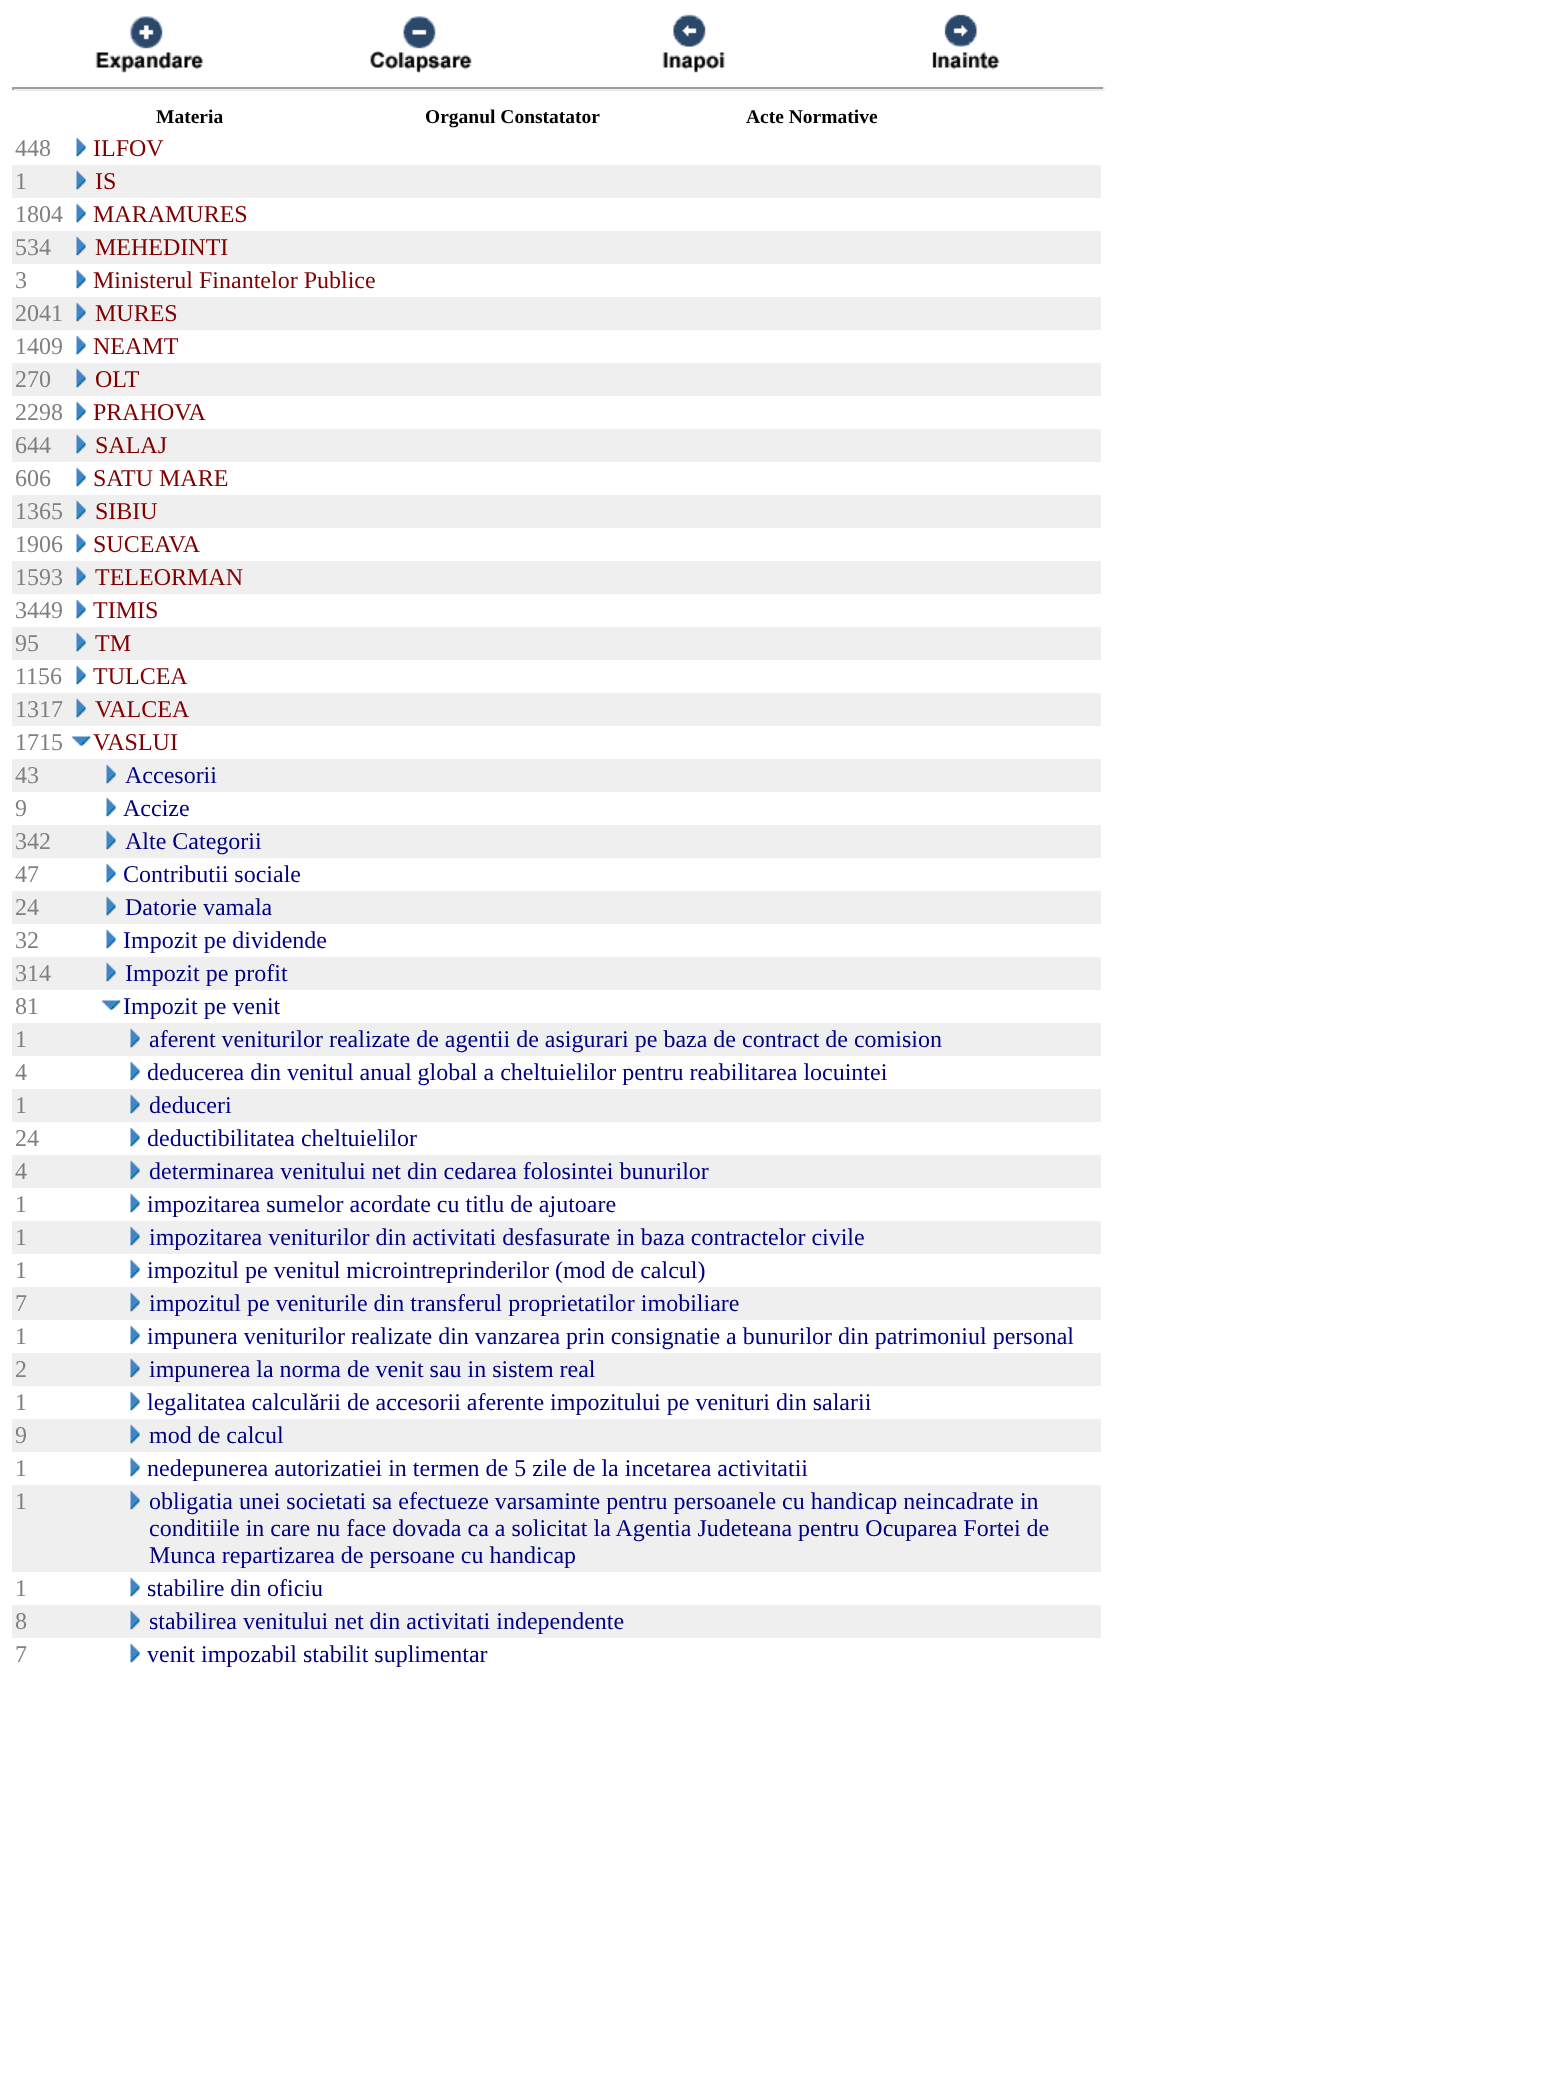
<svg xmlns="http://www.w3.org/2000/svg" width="1561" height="2099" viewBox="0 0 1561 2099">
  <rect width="100%" height="100%" fill="#ffffff"/>
  <image x="95" y="16" width="108" height="57" href="img1.png"/>
  <image x="370" y="16" width="102" height="57" href="img2.png"/>
  <image x="662" y="14" width="63" height="59" href="img3.png"/>
  <image x="932" y="14" width="68" height="56" href="img4.png"/>
  <rect x="12" y="87" width="1092" height="2" fill="#9f9f9f"/>
  <rect x="1103" y="87" width="2" height="3" fill="#eeeeee"/>
  <rect x="12" y="89" width="1092" height="2" fill="#eeeeee"/>
  <rect x="12" y="87" width="2" height="3" fill="#9f9f9f"/>
  <text x="156" y="123" font-family="Liberation Serif" font-size="19.5" font-weight="bold" fill="#000000">Materia</text>
  <text x="425" y="123" font-family="Liberation Serif" font-size="19.5" font-weight="bold" fill="#000000">Organul Constatator</text>
  <text x="746" y="123" font-family="Liberation Serif" font-size="19.5" font-weight="bold" fill="#000000">Acte Normative</text>
  <text x="15" y="156" font-family="Liberation Serif" font-size="24" fill="#808080">448</text>
  <image x="76" y="137" width="10" height="20" href="img5.png"/>
  <text x="93" y="156" font-family="Liberation Serif" font-size="24" fill="#800000">ILFOV</text>
  <rect x="12" y="165" width="1089" height="33" fill="#efefef"/>
  <text x="15" y="189" font-family="Liberation Serif" font-size="24" fill="#808080">1</text>
  <image x="76" y="170" width="10" height="20" href="img6.png"/>
  <text x="95" y="189" font-family="Liberation Serif" font-size="24" fill="#800000">IS</text>
  <text x="15" y="222" font-family="Liberation Serif" font-size="24" fill="#808080">1804</text>
  <image x="76" y="203" width="10" height="20" href="img5.png"/>
  <text x="93" y="222" font-family="Liberation Serif" font-size="24" fill="#800000">MARAMURES</text>
  <rect x="12" y="231" width="1089" height="33" fill="#efefef"/>
  <text x="15" y="255" font-family="Liberation Serif" font-size="24" fill="#808080">534</text>
  <image x="76" y="236" width="10" height="20" href="img6.png"/>
  <text x="95" y="255" font-family="Liberation Serif" font-size="24" fill="#800000">MEHEDINTI</text>
  <text x="15" y="288" font-family="Liberation Serif" font-size="24" fill="#808080">3</text>
  <image x="76" y="269" width="10" height="20" href="img5.png"/>
  <text x="93" y="288" font-family="Liberation Serif" font-size="24" fill="#800000">Ministerul Finantelor Publice</text>
  <rect x="12" y="297" width="1089" height="33" fill="#efefef"/>
  <text x="15" y="321" font-family="Liberation Serif" font-size="24" fill="#808080">2041</text>
  <image x="76" y="302" width="10" height="20" href="img6.png"/>
  <text x="95" y="321" font-family="Liberation Serif" font-size="24" fill="#800000">MURES</text>
  <text x="15" y="354" font-family="Liberation Serif" font-size="24" fill="#808080">1409</text>
  <image x="76" y="335" width="10" height="20" href="img5.png"/>
  <text x="93" y="354" font-family="Liberation Serif" font-size="24" fill="#800000">NEAMT</text>
  <rect x="12" y="363" width="1089" height="33" fill="#efefef"/>
  <text x="15" y="387" font-family="Liberation Serif" font-size="24" fill="#808080">270</text>
  <image x="76" y="368" width="10" height="20" href="img6.png"/>
  <text x="95" y="387" font-family="Liberation Serif" font-size="24" fill="#800000">OLT</text>
  <text x="15" y="420" font-family="Liberation Serif" font-size="24" fill="#808080">2298</text>
  <image x="76" y="401" width="10" height="20" href="img5.png"/>
  <text x="93" y="420" font-family="Liberation Serif" font-size="24" fill="#800000">PRAHOVA</text>
  <rect x="12" y="429" width="1089" height="33" fill="#efefef"/>
  <text x="15" y="453" font-family="Liberation Serif" font-size="24" fill="#808080">644</text>
  <image x="76" y="434" width="10" height="20" href="img6.png"/>
  <text x="95" y="453" font-family="Liberation Serif" font-size="24" fill="#800000">SALAJ</text>
  <text x="15" y="486" font-family="Liberation Serif" font-size="24" fill="#808080">606</text>
  <image x="76" y="467" width="10" height="20" href="img5.png"/>
  <text x="93" y="486" font-family="Liberation Serif" font-size="24" fill="#800000">SATU MARE</text>
  <rect x="12" y="495" width="1089" height="33" fill="#efefef"/>
  <text x="15" y="519" font-family="Liberation Serif" font-size="24" fill="#808080">1365</text>
  <image x="76" y="500" width="10" height="20" href="img6.png"/>
  <text x="95" y="519" font-family="Liberation Serif" font-size="24" fill="#800000">SIBIU</text>
  <text x="15" y="552" font-family="Liberation Serif" font-size="24" fill="#808080">1906</text>
  <image x="76" y="533" width="10" height="20" href="img5.png"/>
  <text x="93" y="552" font-family="Liberation Serif" font-size="24" fill="#800000">SUCEAVA</text>
  <rect x="12" y="561" width="1089" height="33" fill="#efefef"/>
  <text x="15" y="585" font-family="Liberation Serif" font-size="24" fill="#808080">1593</text>
  <image x="76" y="566" width="10" height="20" href="img6.png"/>
  <text x="95" y="585" font-family="Liberation Serif" font-size="24" fill="#800000">TELEORMAN</text>
  <text x="15" y="618" font-family="Liberation Serif" font-size="24" fill="#808080">3449</text>
  <image x="76" y="599" width="10" height="20" href="img5.png"/>
  <text x="93" y="618" font-family="Liberation Serif" font-size="24" fill="#800000">TIMIS</text>
  <rect x="12" y="627" width="1089" height="33" fill="#efefef"/>
  <text x="15" y="651" font-family="Liberation Serif" font-size="24" fill="#808080">95</text>
  <image x="76" y="632" width="10" height="20" href="img6.png"/>
  <text x="95" y="651" font-family="Liberation Serif" font-size="24" fill="#800000">TM</text>
  <text x="15" y="684" font-family="Liberation Serif" font-size="24" fill="#808080">1156</text>
  <image x="76" y="665" width="10" height="20" href="img5.png"/>
  <text x="93" y="684" font-family="Liberation Serif" font-size="24" fill="#800000">TULCEA</text>
  <rect x="12" y="693" width="1089" height="33" fill="#efefef"/>
  <text x="15" y="717" font-family="Liberation Serif" font-size="24" fill="#808080">1317</text>
  <image x="76" y="698" width="10" height="20" href="img6.png"/>
  <text x="95" y="717" font-family="Liberation Serif" font-size="24" fill="#800000">VALCEA</text>
  <text x="15" y="750" font-family="Liberation Serif" font-size="24" fill="#808080">1715</text>
  <image x="71" y="736" width="20" height="10" href="img7.png"/>
  <text x="93" y="750" font-family="Liberation Serif" font-size="24" fill="#800000">VASLUI</text>
  <rect x="12" y="759" width="1089" height="33" fill="#efefef"/>
  <text x="15" y="783" font-family="Liberation Serif" font-size="24" fill="#808080">43</text>
  <image x="106" y="764" width="10" height="20" href="img6.png"/>
  <text x="125" y="783" font-family="Liberation Serif" font-size="24" fill="#000080">Accesorii</text>
  <text x="15" y="816" font-family="Liberation Serif" font-size="24" fill="#808080">9</text>
  <image x="106" y="797" width="10" height="20" href="img5.png"/>
  <text x="123" y="816" font-family="Liberation Serif" font-size="24" fill="#000080">Accize</text>
  <rect x="12" y="825" width="1089" height="33" fill="#efefef"/>
  <text x="15" y="849" font-family="Liberation Serif" font-size="24" fill="#808080">342</text>
  <image x="106" y="830" width="10" height="20" href="img6.png"/>
  <text x="125" y="849" font-family="Liberation Serif" font-size="24" fill="#000080">Alte Categorii</text>
  <text x="15" y="882" font-family="Liberation Serif" font-size="24" fill="#808080">47</text>
  <image x="106" y="863" width="10" height="20" href="img5.png"/>
  <text x="123" y="882" font-family="Liberation Serif" font-size="24" fill="#000080">Contributii sociale</text>
  <rect x="12" y="891" width="1089" height="33" fill="#efefef"/>
  <text x="15" y="915" font-family="Liberation Serif" font-size="24" fill="#808080">24</text>
  <image x="106" y="896" width="10" height="20" href="img6.png"/>
  <text x="125" y="915" font-family="Liberation Serif" font-size="24" fill="#000080">Datorie vamala</text>
  <text x="15" y="948" font-family="Liberation Serif" font-size="24" fill="#808080">32</text>
  <image x="106" y="929" width="10" height="20" href="img5.png"/>
  <text x="123" y="948" font-family="Liberation Serif" font-size="24" fill="#000080">Impozit pe dividende</text>
  <rect x="12" y="957" width="1089" height="33" fill="#efefef"/>
  <text x="15" y="981" font-family="Liberation Serif" font-size="24" fill="#808080">314</text>
  <image x="106" y="962" width="10" height="20" href="img6.png"/>
  <text x="125" y="981" font-family="Liberation Serif" font-size="24" fill="#000080">Impozit pe profit</text>
  <text x="15" y="1014" font-family="Liberation Serif" font-size="24" fill="#808080">81</text>
  <image x="101" y="1000" width="20" height="10" href="img7.png"/>
  <text x="123" y="1014" font-family="Liberation Serif" font-size="24" fill="#000080">Impozit pe venit</text>
  <rect x="12" y="1023" width="1089" height="33" fill="#efefef"/>
  <text x="15" y="1047" font-family="Liberation Serif" font-size="24" fill="#808080">1</text>
  <image x="130" y="1028" width="10" height="20" href="img6.png"/>
  <text x="149" y="1047" font-family="Liberation Serif" font-size="24" fill="#000080">aferent veniturilor realizate de agentii de asigurari pe baza de contract de comision</text>
  <text x="15" y="1080" font-family="Liberation Serif" font-size="24" fill="#808080">4</text>
  <image x="130" y="1061" width="10" height="20" href="img5.png"/>
  <text x="147" y="1080" font-family="Liberation Serif" font-size="24" fill="#000080">deducerea din venitul anual global a cheltuielilor pentru reabilitarea locuintei</text>
  <rect x="12" y="1089" width="1089" height="33" fill="#efefef"/>
  <text x="15" y="1113" font-family="Liberation Serif" font-size="24" fill="#808080">1</text>
  <image x="130" y="1094" width="10" height="20" href="img6.png"/>
  <text x="149" y="1113" font-family="Liberation Serif" font-size="24" fill="#000080">deduceri</text>
  <text x="15" y="1146" font-family="Liberation Serif" font-size="24" fill="#808080">24</text>
  <image x="130" y="1127" width="10" height="20" href="img5.png"/>
  <text x="147" y="1146" font-family="Liberation Serif" font-size="24" fill="#000080">deductibilitatea cheltuielilor</text>
  <rect x="12" y="1155" width="1089" height="33" fill="#efefef"/>
  <text x="15" y="1179" font-family="Liberation Serif" font-size="24" fill="#808080">4</text>
  <image x="130" y="1160" width="10" height="20" href="img6.png"/>
  <text x="149" y="1179" font-family="Liberation Serif" font-size="24" fill="#000080">determinarea venitului net din cedarea folosintei bunurilor</text>
  <text x="15" y="1212" font-family="Liberation Serif" font-size="24" fill="#808080">1</text>
  <image x="130" y="1193" width="10" height="20" href="img5.png"/>
  <text x="147" y="1212" font-family="Liberation Serif" font-size="24" fill="#000080">impozitarea sumelor acordate cu titlu de ajutoare</text>
  <rect x="12" y="1221" width="1089" height="33" fill="#efefef"/>
  <text x="15" y="1245" font-family="Liberation Serif" font-size="24" fill="#808080">1</text>
  <image x="130" y="1226" width="10" height="20" href="img6.png"/>
  <text x="149" y="1245" font-family="Liberation Serif" font-size="24" fill="#000080">impozitarea veniturilor din activitati desfasurate in baza contractelor civile</text>
  <text x="15" y="1278" font-family="Liberation Serif" font-size="24" fill="#808080">1</text>
  <image x="130" y="1259" width="10" height="20" href="img5.png"/>
  <text x="147" y="1278" font-family="Liberation Serif" font-size="24" fill="#000080">impozitul pe venitul microintreprinderilor (mod de calcul)</text>
  <rect x="12" y="1287" width="1089" height="33" fill="#efefef"/>
  <text x="15" y="1311" font-family="Liberation Serif" font-size="24" fill="#808080">7</text>
  <image x="130" y="1292" width="10" height="20" href="img6.png"/>
  <text x="149" y="1311" font-family="Liberation Serif" font-size="24" fill="#000080">impozitul pe veniturile din transferul proprietatilor imobiliare</text>
  <text x="15" y="1344" font-family="Liberation Serif" font-size="24" fill="#808080">1</text>
  <image x="130" y="1325" width="10" height="20" href="img5.png"/>
  <text x="147" y="1344" font-family="Liberation Serif" font-size="24" fill="#000080">impunera veniturilor realizate din vanzarea prin consignatie a bunurilor din patrimoniul personal</text>
  <rect x="12" y="1353" width="1089" height="33" fill="#efefef"/>
  <text x="15" y="1377" font-family="Liberation Serif" font-size="24" fill="#808080">2</text>
  <image x="130" y="1358" width="10" height="20" href="img6.png"/>
  <text x="149" y="1377" font-family="Liberation Serif" font-size="24" fill="#000080">impunerea la norma de venit sau in sistem real</text>
  <text x="15" y="1410" font-family="Liberation Serif" font-size="24" fill="#808080">1</text>
  <image x="130" y="1391" width="10" height="20" href="img5.png"/>
  <text x="147" y="1410" font-family="Liberation Serif" font-size="24" fill="#000080">legalitatea calculării de accesorii aferente impozitului pe venituri din salarii</text>
  <rect x="12" y="1419" width="1089" height="33" fill="#efefef"/>
  <text x="15" y="1443" font-family="Liberation Serif" font-size="24" fill="#808080">9</text>
  <image x="130" y="1424" width="10" height="20" href="img6.png"/>
  <text x="149" y="1443" font-family="Liberation Serif" font-size="24" fill="#000080">mod de calcul</text>
  <text x="15" y="1476" font-family="Liberation Serif" font-size="24" fill="#808080">1</text>
  <image x="130" y="1457" width="10" height="20" href="img5.png"/>
  <text x="147" y="1476" font-family="Liberation Serif" font-size="24" fill="#000080">nedepunerea autorizatiei in termen de 5 zile de la incetarea activitatii</text>
  <rect x="12" y="1485" width="1089" height="87" fill="#efefef"/>
  <text x="15" y="1509" font-family="Liberation Serif" font-size="24" fill="#808080">1</text>
  <image x="130" y="1490" width="10" height="20" href="img6.png"/>
  <text x="149" y="1509" font-family="Liberation Serif" font-size="24" fill="#000080">obligatia unei societati sa efectueze varsaminte pentru persoanele cu handicap neincadrate in</text>
  <text x="149" y="1536" font-family="Liberation Serif" font-size="24" fill="#000080">conditiile in care nu face dovada ca a solicitat la Agentia Judeteana pentru Ocuparea Fortei de</text>
  <text x="149" y="1563" font-family="Liberation Serif" font-size="24" fill="#000080">Munca repartizarea de persoane cu handicap</text>
  <text x="15" y="1596" font-family="Liberation Serif" font-size="24" fill="#808080">1</text>
  <image x="130" y="1577" width="10" height="20" href="img5.png"/>
  <text x="147" y="1596" font-family="Liberation Serif" font-size="24" fill="#000080">stabilire din oficiu</text>
  <rect x="12" y="1605" width="1089" height="33" fill="#efefef"/>
  <text x="15" y="1629" font-family="Liberation Serif" font-size="24" fill="#808080">8</text>
  <image x="130" y="1610" width="10" height="20" href="img6.png"/>
  <text x="149" y="1629" font-family="Liberation Serif" font-size="24" fill="#000080">stabilirea venitului net din activitati independente</text>
  <text x="15" y="1662" font-family="Liberation Serif" font-size="24" fill="#808080">7</text>
  <image x="130" y="1643" width="10" height="20" href="img5.png"/>
  <text x="147" y="1662" font-family="Liberation Serif" font-size="24" fill="#000080">venit impozabil stabilit suplimentar</text>
</svg>
